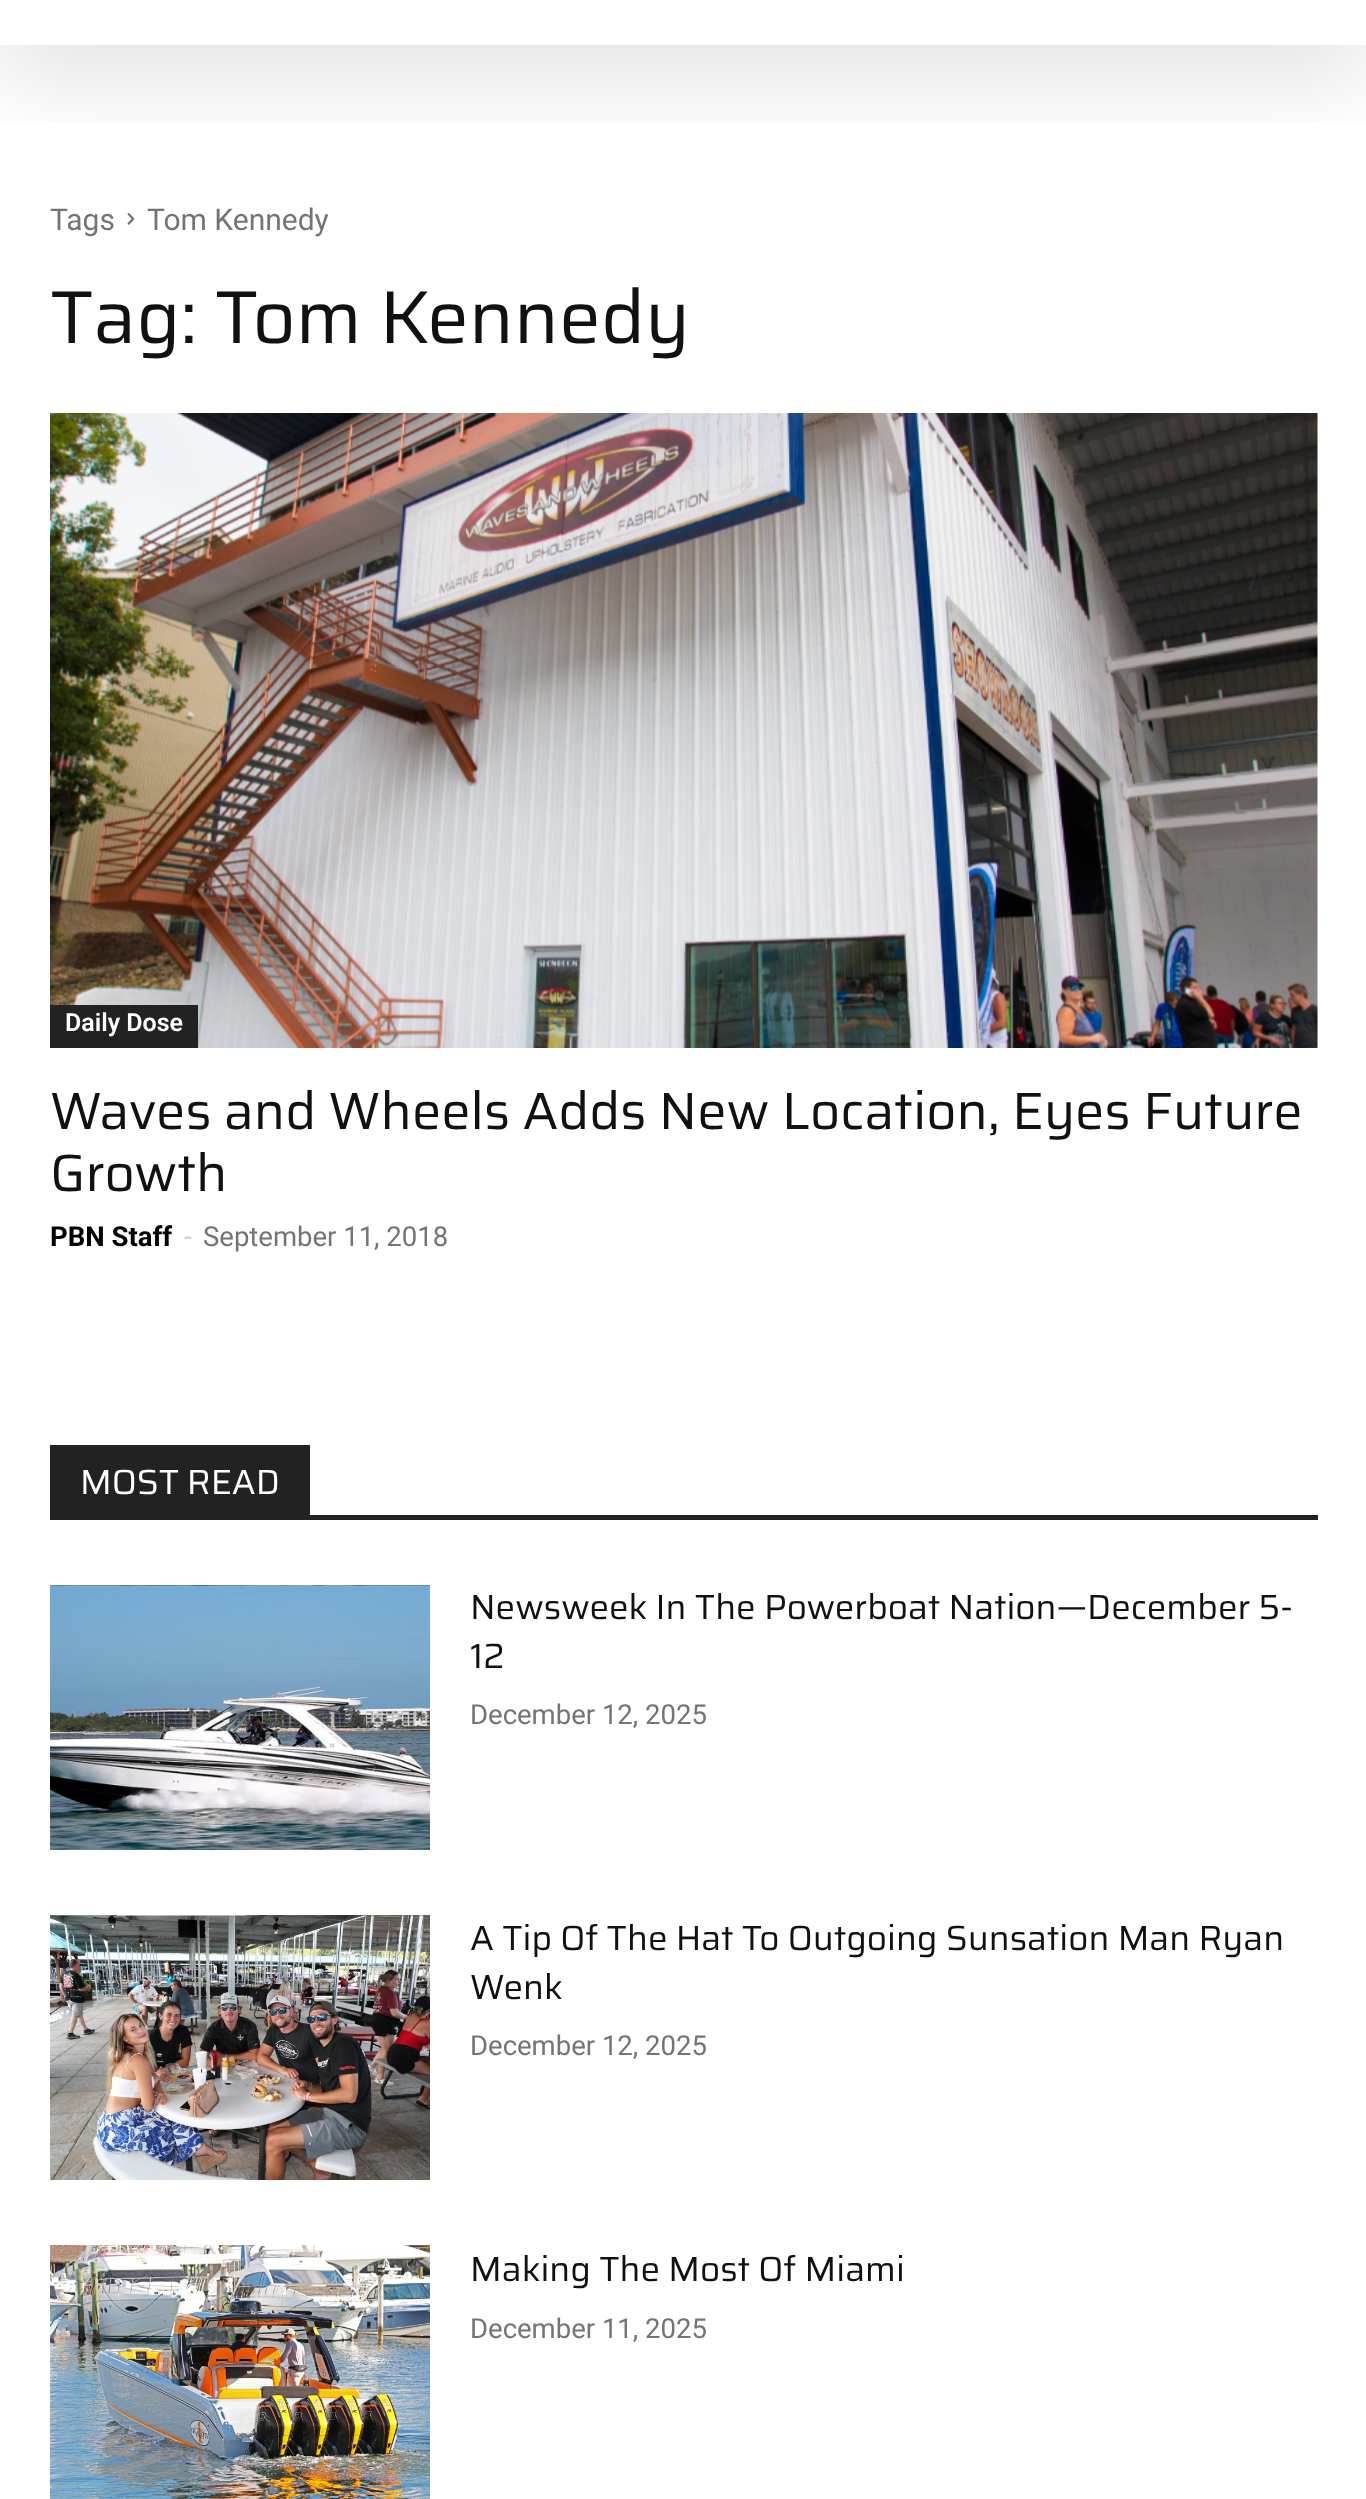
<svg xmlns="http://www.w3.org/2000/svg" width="1366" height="2499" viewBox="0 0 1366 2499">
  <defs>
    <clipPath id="clip1"><rect x="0" y="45" width="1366" height="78"/></clipPath>
    <filter id="blur1" x="-50%" y="-200%" width="200%" height="500%"><feGaussianBlur stdDeviation="50"/></filter>
  </defs>
  <rect width="100%" height="100%" fill="#ffffff"/>
  <image x="127" y="213" width="8" height="12" href="img1.png"/>
  <g clip-path="url(#clip1)">
    <rect x="0" y="-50" width="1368" height="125" fill="#000000" fill-opacity="0.12" filter="url(#blur1)"/>
  </g>
  <text x="50" y="230" font-family="Roboto" font-size="30" fill="#747474">Tags</text>
  <text x="147" y="230" font-family="Roboto" font-size="30" fill="#747474">Tom Kennedy</text>
  <text x="50" y="343" font-family="Saira" font-size="75" fill="#111111">Tag: Tom Kennedy</text>
  <image x="50" y="413" width="1268" height="635" href="img2.png"/>
  <rect x="50" y="1005" width="148" height="43" fill="#222222"/>
  <text x="65" y="1031" font-family="Roboto" font-size="25" font-weight="600" fill="#ffffff">Daily Dose</text>
  <text x="50" y="1129" font-family="Saira" font-size="52.5" fill="#111111">Waves and Wheels Adds New Location, Eyes Future</text>
  <text x="50" y="1191" font-family="Saira" font-size="52.5" fill="#111111">Growth</text>
  <text x="50" y="1246" font-family="Roboto" font-size="27.5" font-weight="bold" fill="#000000">PBN Staff</text>
  <text x="184" y="1246" font-family="Roboto" font-size="27.5" fill="#cccccc">-</text>
  <text x="203" y="1246" font-family="Roboto" font-size="27.5" fill="#747474">September 11, 2018</text>
  <rect x="50" y="1515" width="1268" height="5" fill="#222222"/>
  <rect x="50" y="1445" width="260" height="70" fill="#222222"/>
  <text x="80" y="1494" font-family="Saira" font-size="35" fill="#ffffff">MOST READ</text>
  <image x="50" y="1585" width="380" height="265" href="img3.png"/>
  <text x="470" y="1619" font-family="Saira" font-size="35" fill="#111111">Newsweek In The Powerboat Nation—December 5-</text>
  <text x="470" y="1668" font-family="Saira" font-size="35" fill="#111111">12</text>
  <text x="470" y="1724" font-family="Roboto" font-size="27.5" fill="#747474">December 12, 2025</text>
  <image x="50" y="1915" width="380" height="265" href="img4.png"/>
  <text x="470" y="1950" font-family="Saira" font-size="35" fill="#111111">A Tip Of The Hat To Outgoing Sunsation Man Ryan</text>
  <text x="470" y="1999" font-family="Saira" font-size="35" fill="#111111">Wenk</text>
  <text x="470" y="2055" font-family="Roboto" font-size="27.5" fill="#747474">December 12, 2025</text>
  <image x="50" y="2245" width="380" height="254" href="img5.png"/>
  <text x="470" y="2281" font-family="Saira" font-size="35" fill="#111111">Making The Most Of Miami</text>
  <text x="470" y="2338" font-family="Roboto" font-size="27.5" fill="#747474">December 11, 2025</text>
</svg>
